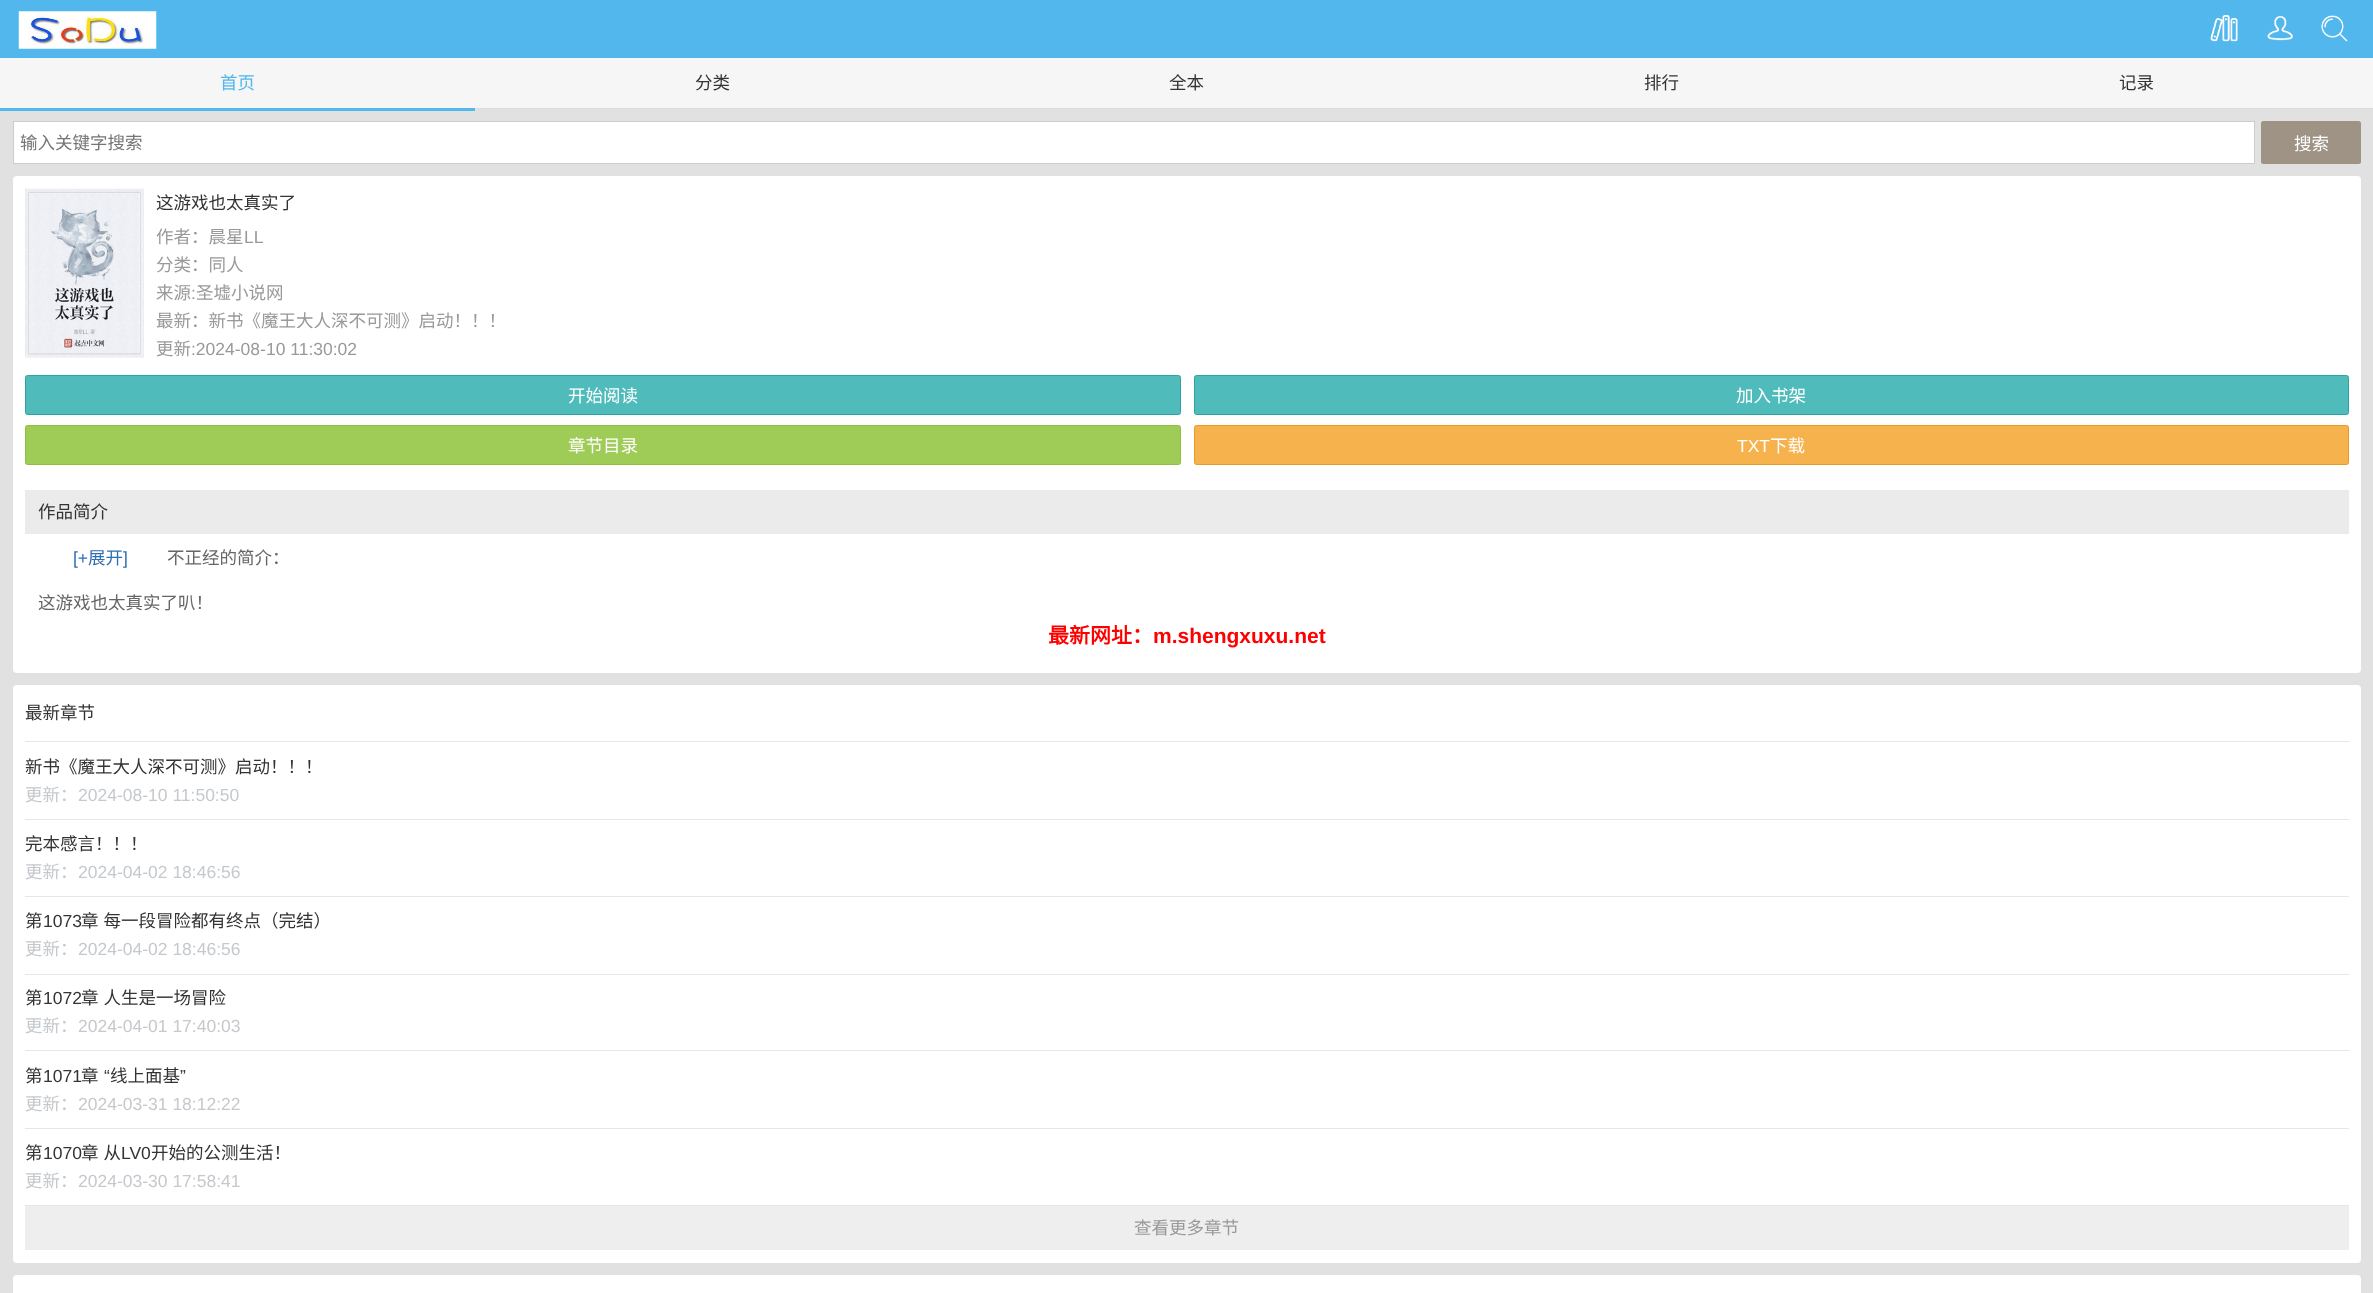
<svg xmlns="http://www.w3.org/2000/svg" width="2373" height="1293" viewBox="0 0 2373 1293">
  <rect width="100%" height="100%" fill="#e1e1e1"/>
  <rect x="0" y="0" width="2373" height="58" fill="#51b7ec"/>
  <image x="18" y="11" width="139" height="38" href="img1.png"/>
  <image x="2210" y="15" width="28" height="27" href="img2.png"/>
  <image x="2267" y="16" width="26" height="25" href="img3.png"/>
  <image x="2321" y="15" width="27" height="27" href="img4.png"/>
  <rect x="0" y="58" width="2373" height="50" fill="#f6f6f6"/>
  <rect x="475" y="108" width="1898" height="1" fill="#dcdcdc"/>
  <rect x="0" y="108" width="475" height="3" fill="#51b7ec"/>
  <text x="220" y="89" font-family="Noto Sans CJK SC" font-size="17.5" fill="#51b7ec">首页</text>
  <text x="695" y="89" font-family="Noto Sans CJK SC" font-size="17.5" fill="#333333">分类</text>
  <text x="1169" y="89" font-family="Noto Sans CJK SC" font-size="17.5" fill="#333333">全本</text>
  <text x="1644" y="89" font-family="Noto Sans CJK SC" font-size="17.5" fill="#333333">排行</text>
  <text x="2119" y="89" font-family="Noto Sans CJK SC" font-size="17.5" fill="#333333">记录</text>
  <rect x="13.5" y="121.5" width="2241" height="42" fill="#ffffff" stroke="#cccccc"/>
  <text x="20" y="149" font-family="Noto Sans CJK SC" font-size="17.5" fill="#757575">输入关键字搜索</text>
  <rect x="2261" y="121" width="100" height="43" rx="2.5" fill="#9f9386"/>
  <text x="2294" y="150" font-family="Noto Sans CJK SC" font-size="17.5" fill="#ffffff">搜索</text>
  <rect x="13" y="176" width="2348" height="497" rx="4" fill="#ffffff"/>
  <image x="25" y="188" width="119" height="170" href="img5.png"/>
  <text x="156" y="209" font-family="Noto Sans CJK SC" font-size="17.5" fill="#333333">这游戏也太真实了</text>
  <text x="156" y="243" font-family="Noto Sans CJK SC" font-size="17.5" fill="#999999">作者：晨星</text>
  <text x="244" y="243" font-family="Liberation Sans" font-size="17.5" fill="#999999">LL</text>
  <text x="156" y="271" font-family="Noto Sans CJK SC" font-size="17.5" fill="#999999">分类：同人</text>
  <text x="156" y="299" font-family="Noto Sans CJK SC" font-size="17.5" fill="#999999">来源</text>
  <text x="191" y="299" font-family="Liberation Sans" font-size="17.5" fill="#999999">:</text>
  <text x="196" y="299" font-family="Noto Sans CJK SC" font-size="17.5" fill="#999999">圣墟小说网</text>
  <text x="156" y="327" font-family="Noto Sans CJK SC" font-size="17.5" fill="#999999">最新：新书《魔王大人深不可测》启动！！！</text>
  <text x="156" y="355" font-family="Noto Sans CJK SC" font-size="17.5" fill="#999999">更新</text>
  <text x="191" y="355" font-family="Liberation Sans" font-size="17.5" fill="#999999">:2024-08-10 11:30:02</text>
  <rect x="25.5" y="375.5" width="1155" height="39" rx="2" fill="#4fbbba" stroke="#2ba4a3"/>
  <text x="568" y="402" font-family="Noto Sans CJK SC" font-size="17.5" fill="#ffffff">开始阅读</text>
  <rect x="1194.5" y="375.5" width="1154" height="39" rx="2" fill="#4fbbba" stroke="#2ba4a3"/>
  <text x="1736" y="402" font-family="Noto Sans CJK SC" font-size="17.5" fill="#ffffff">加入书架</text>
  <rect x="25.5" y="425.5" width="1155" height="39" rx="2" fill="#9fcb57" stroke="#8ebf3f"/>
  <text x="568" y="452" font-family="Noto Sans CJK SC" font-size="17.5" fill="#ffffff">章节目录</text>
  <rect x="1194.5" y="425.5" width="1154" height="39" rx="2" fill="#f5b24d" stroke="#e99a24"/>
  <text x="1737" y="452" font-family="Liberation Sans" font-size="17.5" fill="#ffffff">TXT</text>
  <text x="1770" y="452" font-family="Noto Sans CJK SC" font-size="17.5" fill="#ffffff">下载</text>
  <rect x="25" y="490" width="2324" height="44" fill="#ebebeb"/>
  <text x="38" y="518" font-family="Noto Sans CJK SC" font-size="17.5" fill="#333333">作品简介</text>
  <text x="73" y="564" font-family="Liberation Sans" font-size="17.5" fill="#2e6fb3">[+</text>
  <text x="88" y="564" font-family="Noto Sans CJK SC" font-size="17.5" fill="#2e6fb3">展开</text>
  <text x="123" y="564" font-family="Liberation Sans" font-size="17.5" fill="#2e6fb3">]</text>
  <text x="167" y="564" font-family="Noto Sans CJK SC" font-size="17.5" fill="#666666">不正经的简介：</text>
  <text x="38" y="609" font-family="Noto Sans CJK SC" font-size="17.5" fill="#666666">这游戏也太真实了叭！</text>
  <text x="1048" y="643" font-family="Noto Sans CJK SC" font-size="21" font-weight="bold" fill="#ff0000">最新网址：</text>
  <text x="1153" y="643" font-family="Liberation Sans" font-size="21" font-weight="bold" fill="#ff0000">m.shengxuxu.net</text>
  <rect x="13" y="685" width="2348" height="578" rx="4" fill="#ffffff"/>
  <rect x="25" y="741" width="2324" height="1" fill="#e6e6e6"/>
  <text x="25" y="719" font-family="Noto Sans CJK SC" font-size="17.5" fill="#333333">最新章节</text>
  <rect x="25" y="819" width="2324" height="1" fill="#e6e6e6"/>
  <text x="25" y="773" font-family="Noto Sans CJK SC" font-size="17.5" fill="#333333">新书《魔王大人深不可测》启动！！！</text>
  <text x="25" y="801" font-family="Noto Sans CJK SC" font-size="17.5" fill="#c5c9cd">更新：</text>
  <text x="78" y="801" font-family="Liberation Sans" font-size="17.5" fill="#c5c9cd">2024-08-10 11:50:50</text>
  <rect x="25" y="896" width="2324" height="1" fill="#e6e6e6"/>
  <text x="25" y="850" font-family="Noto Sans CJK SC" font-size="17.5" fill="#333333">完本感言！！！</text>
  <text x="25" y="878" font-family="Noto Sans CJK SC" font-size="17.5" fill="#c5c9cd">更新：</text>
  <text x="78" y="878" font-family="Liberation Sans" font-size="17.5" fill="#c5c9cd">2024-04-02 18:46:56</text>
  <rect x="25" y="974" width="2324" height="1" fill="#e6e6e6"/>
  <text x="25" y="927" font-family="Noto Sans CJK SC" font-size="17.5" fill="#333333">第</text>
  <text x="43" y="927" font-family="Liberation Sans" font-size="17.5" fill="#333333">1073</text>
  <text x="81" y="927" word-spacing="1" font-family="Noto Sans CJK SC" font-size="17.5" fill="#333333">章 每一段冒险都有终点（完结）</text>
  <text x="25" y="955" font-family="Noto Sans CJK SC" font-size="17.5" fill="#c5c9cd">更新：</text>
  <text x="78" y="955" font-family="Liberation Sans" font-size="17.5" fill="#c5c9cd">2024-04-02 18:46:56</text>
  <rect x="25" y="1050" width="2324" height="1" fill="#e6e6e6"/>
  <text x="25" y="1004" font-family="Noto Sans CJK SC" font-size="17.5" fill="#333333">第</text>
  <text x="43" y="1004" font-family="Liberation Sans" font-size="17.5" fill="#333333">1072</text>
  <text x="81" y="1004" word-spacing="1" font-family="Noto Sans CJK SC" font-size="17.5" fill="#333333">章 人生是一场冒险</text>
  <text x="25" y="1032" font-family="Noto Sans CJK SC" font-size="17.5" fill="#c5c9cd">更新：</text>
  <text x="78" y="1032" font-family="Liberation Sans" font-size="17.5" fill="#c5c9cd">2024-04-01 17:40:03</text>
  <rect x="25" y="1128" width="2324" height="1" fill="#e6e6e6"/>
  <text x="25" y="1082" font-family="Noto Sans CJK SC" font-size="17.5" fill="#333333">第</text>
  <text x="43" y="1082" font-family="Liberation Sans" font-size="17.5" fill="#333333">1071</text>
  <text x="81" y="1082" font-family="Noto Sans CJK SC" font-size="17.5" fill="#333333">章</text>
  <text x="104" y="1082" font-family="Liberation Sans" font-size="17.5" fill="#333333">“</text>
  <text x="110" y="1082" font-family="Noto Sans CJK SC" font-size="17.5" fill="#333333">线上面基</text>
  <text x="180" y="1082" font-family="Liberation Sans" font-size="17.5" fill="#333333">”</text>
  <text x="25" y="1110" font-family="Noto Sans CJK SC" font-size="17.5" fill="#c5c9cd">更新：</text>
  <text x="78" y="1110" font-family="Liberation Sans" font-size="17.5" fill="#c5c9cd">2024-03-31 18:12:22</text>
  <rect x="25" y="1205" width="2324" height="1" fill="#e6e6e6"/>
  <text x="25" y="1159" font-family="Noto Sans CJK SC" font-size="17.5" fill="#333333">第</text>
  <text x="43" y="1159" font-family="Liberation Sans" font-size="17.5" fill="#333333">1070</text>
  <text x="81" y="1159" word-spacing="1" font-family="Noto Sans CJK SC" font-size="17.5" fill="#333333">章 从</text>
  <text x="121" y="1159" font-family="Liberation Sans" font-size="17.5" fill="#333333">LV0</text>
  <text x="151" y="1159" font-family="Noto Sans CJK SC" font-size="17.5" fill="#333333">开始的公测生活！</text>
  <text x="25" y="1187" font-family="Noto Sans CJK SC" font-size="17.5" fill="#c5c9cd">更新：</text>
  <text x="78" y="1187" font-family="Liberation Sans" font-size="17.5" fill="#c5c9cd">2024-03-30 17:58:41</text>
  <rect x="25" y="1206" width="2324" height="44" fill="#eeeeee"/>
  <text x="1134" y="1234" font-family="Noto Sans CJK SC" font-size="17.5" fill="#999999">查看更多章节</text>
  <rect x="13" y="1275" width="2348" height="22" rx="4" fill="#ffffff"/>
</svg>
